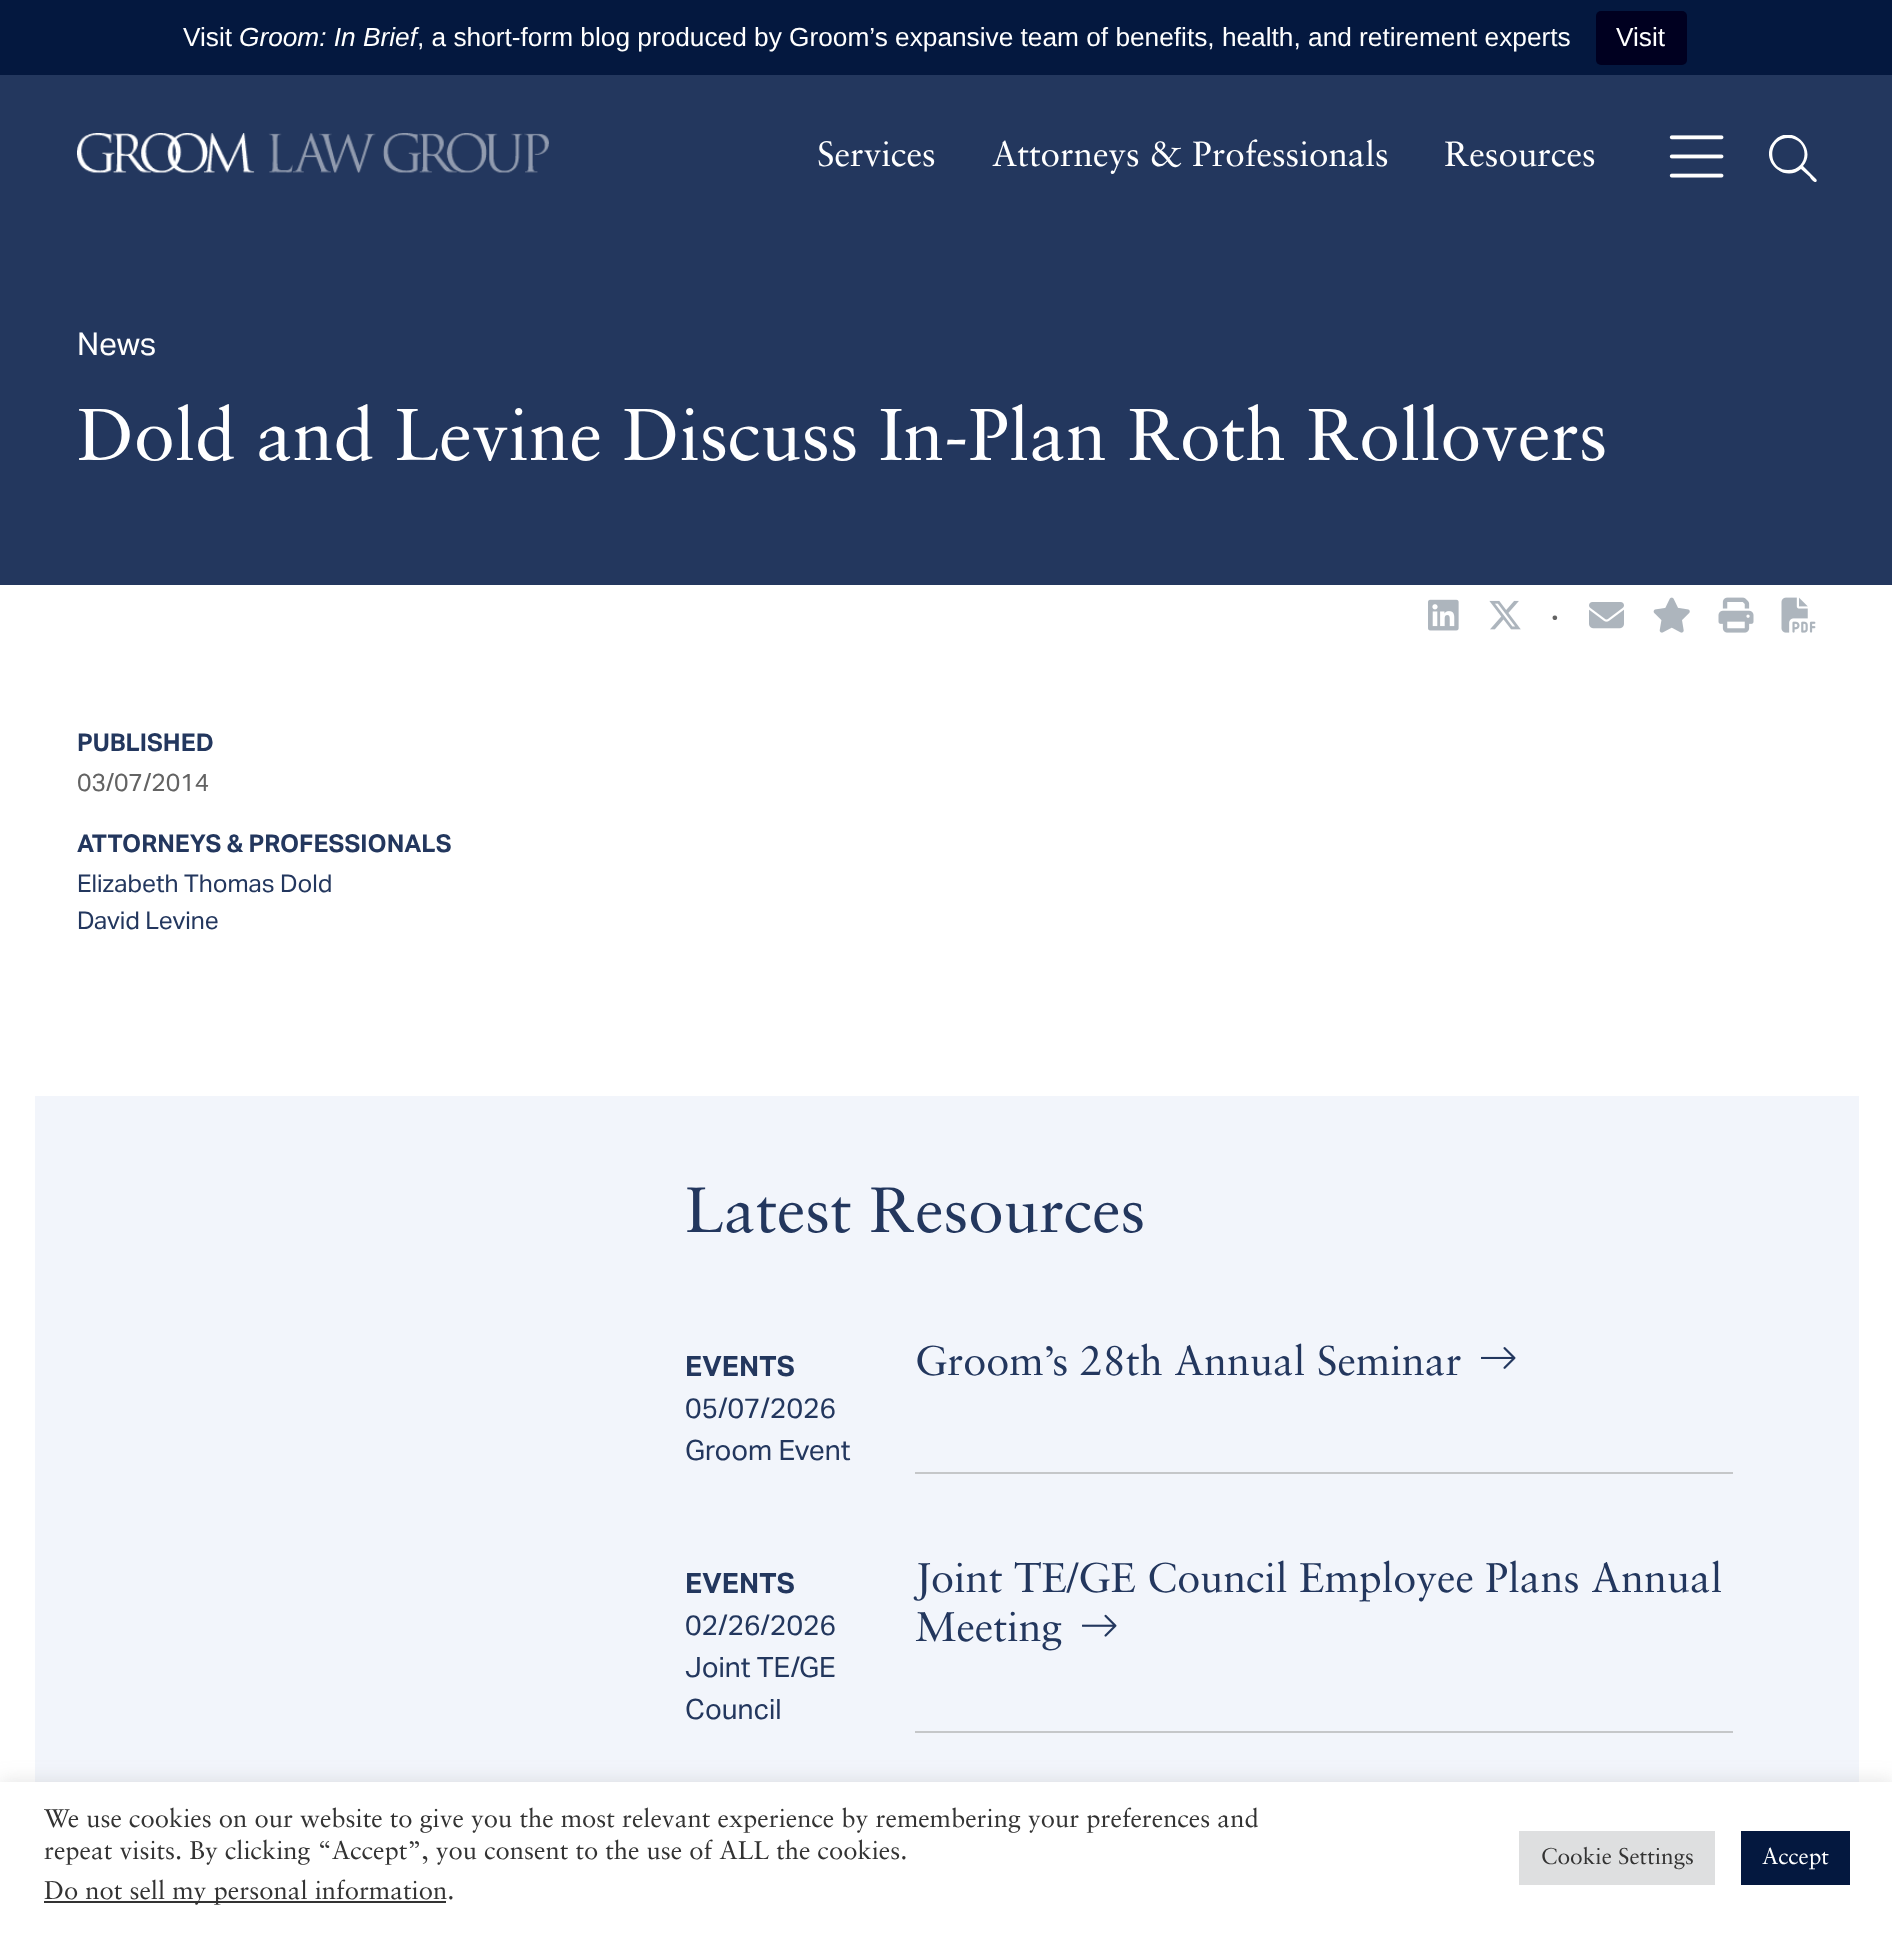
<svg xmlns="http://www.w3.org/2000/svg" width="1892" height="1933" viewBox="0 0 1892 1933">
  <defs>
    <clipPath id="clip1"><rect x="1769" y="135" width="48" height="47"/></clipPath>
    <filter id="blur1" x="-50%" y="-200%" width="200%" height="500%"><feGaussianBlur stdDeviation="9"/></filter>
  </defs>
  <rect width="100%" height="100%" fill="#ffffff"/>
  <rect x="0" y="0" width="1892" height="75" fill="#04183f"/>
  <text x="183" y="46" font-family="Liberation Sans" font-size="26.25" fill="#ffffff">Visit</text>
  <text x="239" y="46" font-family="Liberation Sans" font-size="26.25" font-style="italic" fill="#ffffff">Groom: In Brief</text>
  <text x="417" y="46" font-family="Liberation Sans" font-size="26.25" fill="#ffffff">, a short-form blog produced by Groom’s expansive team of benefits, health, and retirement experts</text>
  <rect x="1596" y="11" width="91" height="54" rx="5" fill="#000020"/>
  <text x="1616" y="46" font-family="Liberation Sans" font-size="26.25" fill="#ffffff">Visit</text>
  <rect x="0" y="75" width="1892" height="510" fill="#23375e"/>
  <image x="77" y="133" width="472" height="41" href="img1.png"/>
  <text x="817" y="166" font-family="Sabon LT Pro" font-size="35" fill="#ffffff">Services</text>
  <text x="992" y="166" font-family="Sabon LT Pro" font-size="35" fill="#ffffff">Attorneys &amp; Professionals</text>
  <text x="1444" y="166" font-family="Sabon LT Pro" font-size="35" fill="#ffffff">Resources</text>
  <image x="1669" y="135" width="55" height="43" href="img2.png"/>
  <g clip-path="url(#clip1)">
    <path d="M1816 179L1803 166C1818 149 1792 123 1775 140C1757 158 1783 184 1801 169L1810 177C1810 178 1814 183 1816 182C1817 181 1817 180 1816 179ZM1788 170C1767 170 1767 138 1788 138C1810 138 1810 170 1788 170Z" fill="#ffffff"/>
  </g>
  <text x="77" y="355" font-family="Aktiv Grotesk" font-size="31.5" fill="#ffffff">News</text>
  <text x="77" y="460" font-family="Sabon LT Pro" font-size="73.25" fill="#ffffff">Dold and Levine Discuss In-Plan Roth Rollovers</text>
  <image x="1428" y="599" width="31" height="32" href="img3.png"/>
  <image x="1489" y="600" width="32" height="30" href="img4.png"/>
  <text x="1550" y="628" font-family="Sabon LT Pro" font-size="35" fill="#636363">·</text>
  <image x="1589" y="602" width="35" height="27" href="img5.png"/>
  <image x="1653" y="597" width="37" height="36" href="img6.png"/>
  <image x="1718" y="597" width="36" height="36" href="img7.png"/>
  <image x="1781" y="597" width="35" height="36" href="img8.png"/>
  <text x="77" y="751" font-family="Aktiv Grotesk" font-size="24.5" font-weight="bold" fill="#23375e">PUBLISHED</text>
  <text x="77" y="791" font-family="Aktiv Grotesk" font-size="24.5" fill="#636363">03/07/2014</text>
  <text x="77" y="852" font-family="Aktiv Grotesk" font-size="24.5" font-weight="bold" fill="#23375e">ATTORNEYS &amp; PROFESSIONALS</text>
  <text x="77" y="892" font-family="Aktiv Grotesk" font-size="24.5" fill="#23375e">Elizabeth Thomas Dold</text>
  <text x="77" y="929" font-family="Aktiv Grotesk" font-size="24.5" fill="#23375e">David Levine</text>
  <rect x="35" y="1096" width="1824" height="686" fill="#f2f5fb"/>
  <text x="685" y="1232" font-family="Sabon LT Pro" font-size="63.75" fill="#23375e">Latest Resources</text>
  <text x="685" y="1376" font-family="Aktiv Grotesk" font-size="28" font-weight="bold" fill="#23375e">EVENTS</text>
  <text x="685" y="1418" font-family="Aktiv Grotesk" font-size="28" fill="#23375e">05/07/2026</text>
  <text x="685" y="1460" font-family="Aktiv Grotesk" font-size="28" fill="#23375e">Groom Event</text>
  <rect x="915" y="1472" width="818" height="2" fill="#c5c7c9"/>
  <text x="915" y="1375" font-family="Sabon LT Pro" font-size="41.4" fill="#23375e">Groom’s 28th Annual Seminar</text>
  <image x="1481" y="1347" width="35" height="22" href="img9.png"/>
  <text x="685" y="1593" font-family="Aktiv Grotesk" font-size="28" font-weight="bold" fill="#23375e">EVENTS</text>
  <text x="685" y="1635" font-family="Aktiv Grotesk" font-size="28" fill="#23375e">02/26/2026</text>
  <text x="685" y="1677" font-family="Aktiv Grotesk" font-size="28" fill="#23375e">Joint TE/GE</text>
  <text x="685" y="1719" font-family="Aktiv Grotesk" font-size="28" fill="#23375e">Council</text>
  <rect x="915" y="1731" width="818" height="2" fill="#c5c7c9"/>
  <text x="915" y="1592" font-family="Sabon LT Pro" font-size="41.4" fill="#23375e">Joint TE/GE Council Employee Plans Annual</text>
  <text x="915" y="1641" font-family="Sabon LT Pro" font-size="41.4" fill="#23375e">Meeting</text>
  <image x="1082" y="1614" width="35" height="23" href="img10.png"/>
  <rect x="0" y="1780" width="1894" height="152" fill="#acabab" fill-opacity="0.3" filter="url(#blur1)"/>
  <rect x="0" y="1782" width="1892" height="151" fill="#ffffff"/>
  <text x="44" y="1827" font-family="Sabon LT Pro" font-size="25.65" fill="#333333">We use cookies on our website to give you the most relevant experience by remembering your preferences and</text>
  <text x="44" y="1859" font-family="Sabon LT Pro" font-size="25.65" fill="#333333">repeat visits. By clicking “Accept”, you consent to the use of ALL the cookies.</text>
  <rect x="44" y="1901" width="402" height="2" fill="#333333"/>
  <text x="44" y="1899" font-family="Sabon LT Pro" font-size="25.65" fill="#333333">Do not sell my personal information.</text>
  <rect x="1519" y="1831" width="196" height="54" fill="#dedfe0"/>
  <text x="1541" y="1864" font-family="Sabon LT Pro" font-size="22.75" fill="#333333">Cookie Settings</text>
  <rect x="1741" y="1831" width="109" height="54" fill="#04183f"/>
  <text x="1762" y="1864" font-family="Sabon LT Pro" font-size="22.75" fill="#ffffff">Accept</text>
</svg>
